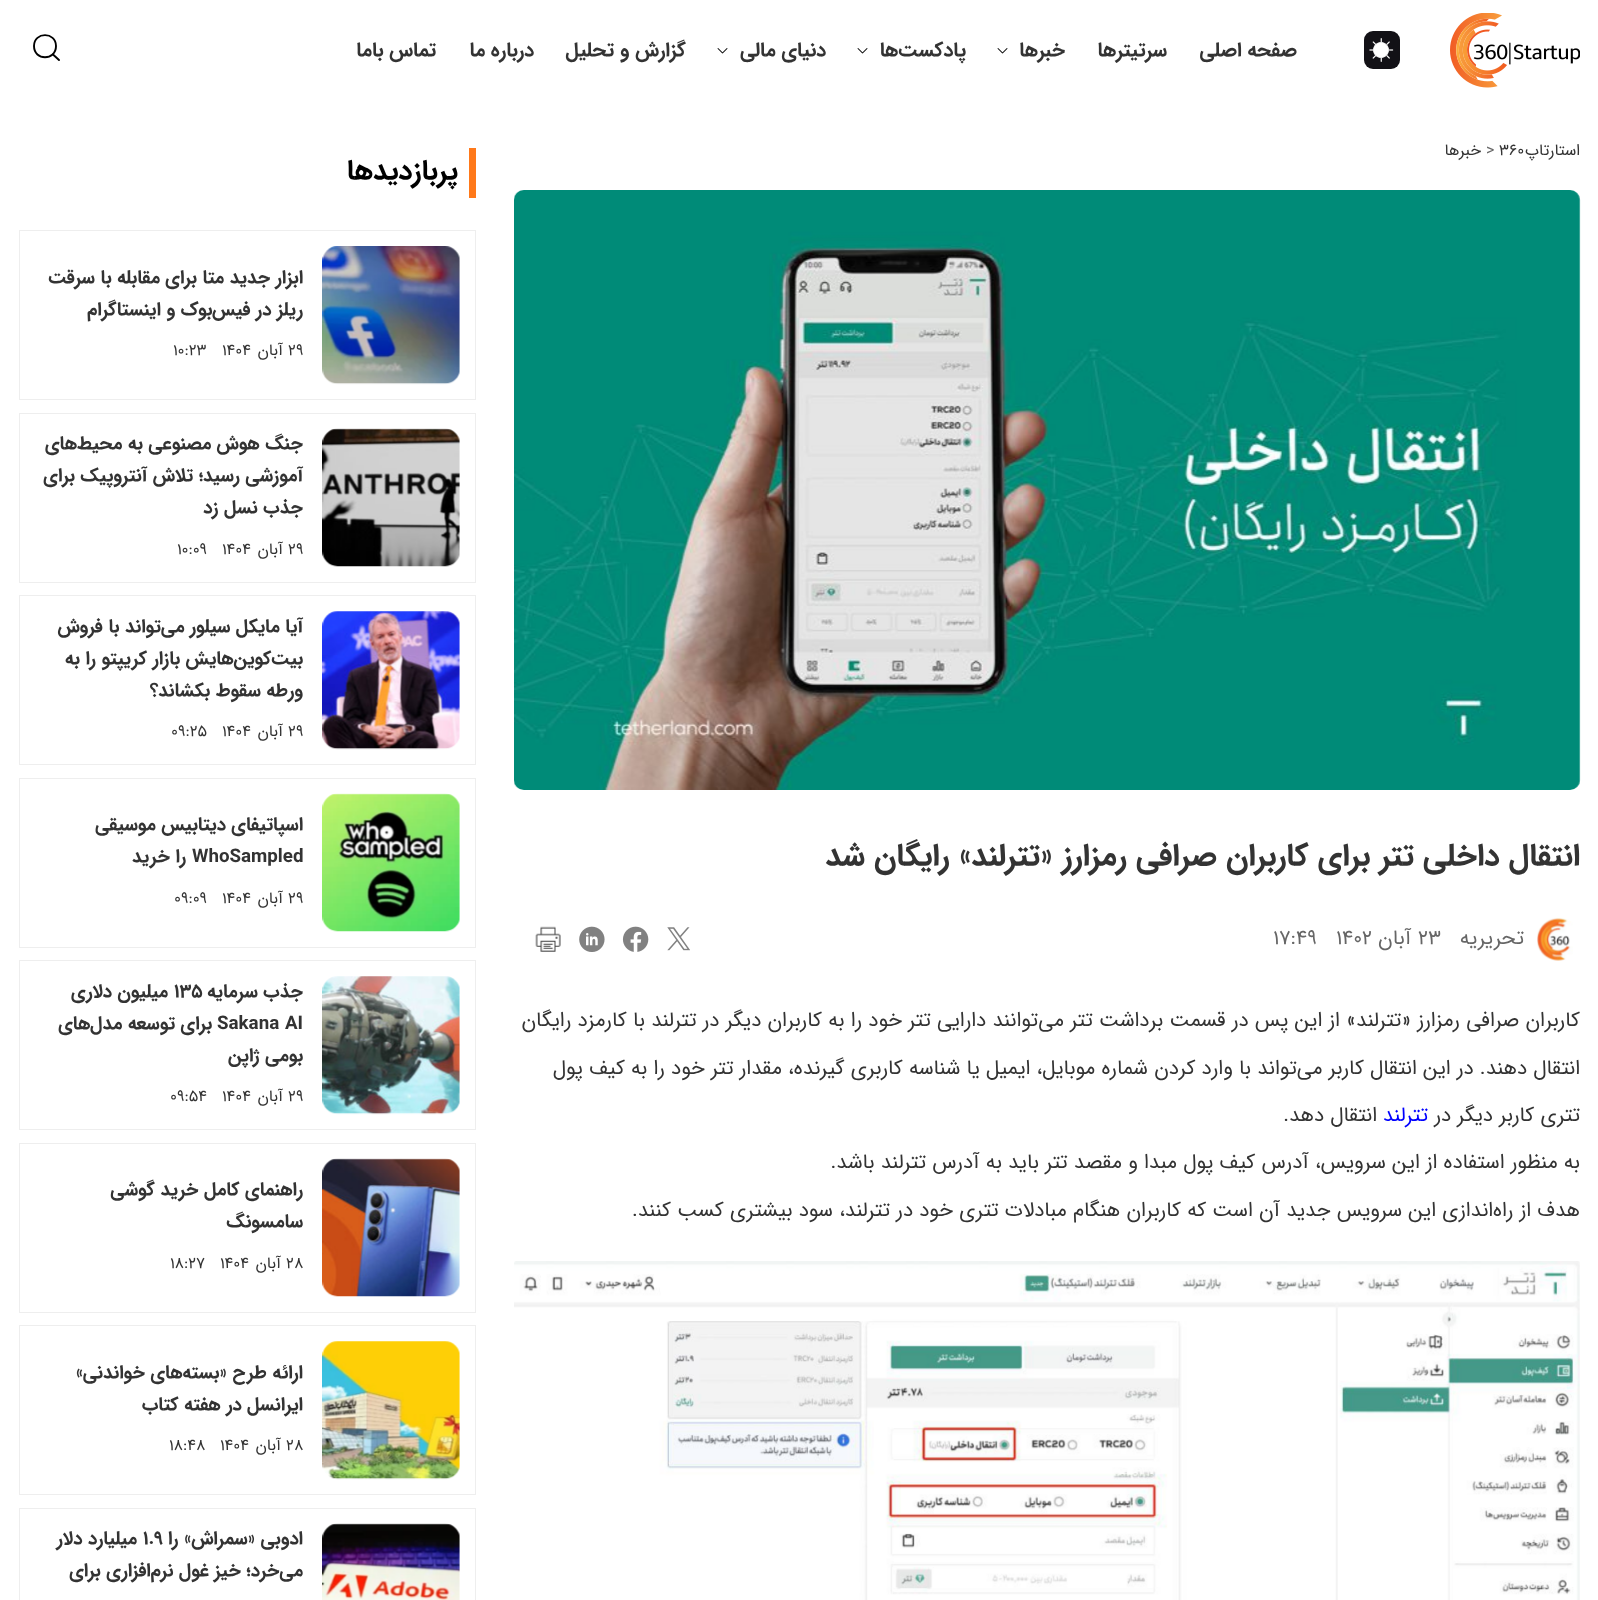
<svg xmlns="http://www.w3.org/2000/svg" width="1598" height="1600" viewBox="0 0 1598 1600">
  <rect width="100%" height="100%" fill="#ffffff"/>
  <image x="1450" y="13" width="130" height="75" href="img1.png"/>
  <rect x="1364" y="31" width="36" height="38" rx="9" fill="#121116"/>
  <image x="1369" y="38" width="25" height="24" href="img2.png"/>
  <text x="1297" y="56" font-family="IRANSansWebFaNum" font-size="20" font-weight="bold" direction="rtl" fill="#333333">صفحه اصلی</text>
  <text x="1167" y="56" font-family="IRANSansWebFaNum" font-size="20" font-weight="bold" direction="rtl" fill="#333333">سرتیترها</text>
  <text x="1065" y="56" font-family="IRANSansWebFaNum" font-size="20" font-weight="bold" direction="rtl" fill="#333333">خبرها</text>
  <image x="997" y="48" width="11" height="6" href="img3.png"/>
  <text x="966" y="56" font-family="IRANSansWebFaNum" font-size="20" font-weight="bold" direction="rtl" fill="#333333">پادکست‌ها</text>
  <image x="857" y="48" width="11" height="6" href="img3.png"/>
  <text x="826" y="56" font-family="IRANSansWebFaNum" font-size="20" font-weight="bold" direction="rtl" fill="#333333">دنیای مالی</text>
  <image x="717" y="48" width="11" height="6" href="img3.png"/>
  <text x="686" y="56" font-family="IRANSansWebFaNum" font-size="20" font-weight="bold" direction="rtl" fill="#333333">گزارش و تحلیل</text>
  <text x="534" y="56" font-family="IRANSansWebFaNum" font-size="20" font-weight="bold" direction="rtl" fill="#333333">درباره ما</text>
  <text x="436" y="56" font-family="IRANSansWebFaNum" font-size="20" font-weight="bold" direction="rtl" fill="#333333">تماس باما</text>
  <path d="M53 54.5L59 60" fill="none" stroke="#000000" stroke-width="1.9" stroke-linecap="round" stroke-linejoin="round"/>
  <path d="M56 46C56 31.5 34 31.5 34 46C34 61 56 61 56 46Z" fill="none" stroke="#000000" stroke-width="1.9" stroke-linejoin="round"/>
  <text x="1580" y="155" font-family="IRANSansWebFaNum" font-size="16" direction="rtl" fill="#333333">استارتاپ</text>
  <text x="1499" y="155" font-family="IRANSansWebFaNum" font-size="16" fill="#333333">360</text>
  <text x="1486" y="155" font-family="IRANSansWebFaNum" font-size="16" fill="#666666">&gt;</text>
  <text x="1481" y="155" font-family="IRANSansWebFaNum" font-size="16" direction="rtl" fill="#333333">خبرها</text>
  <image x="514" y="190" width="1067" height="600" href="img4.png"/>
  <text x="1580" y="865" font-family="IRANSansWebFaNum" font-size="31.25" font-weight="bold" direction="rtl" fill="#333333">انتقال داخلی تتر برای کاربران صرافی رمزارز «تترلند» رایگان شد</text>
  <image x="1537" y="917" width="36" height="44" href="img5.png"/>
  <text x="1524" y="944" font-family="IRANSansWebFaNum" font-size="20.62" direction="rtl" fill="#666666">تحریریه</text>
  <text x="1418" y="944" font-family="IRANSansWebFaNum" font-size="20.62" fill="#666666">23</text>
  <text x="1411" y="944" font-family="IRANSansWebFaNum" font-size="20.62" direction="rtl" fill="#666666">آبان</text>
  <text x="1336" y="944" font-family="IRANSansWebFaNum" font-size="20.62" fill="#666666">1402</text>
  <text x="1273" y="944" font-family="IRANSansWebFaNum" font-size="20.62" fill="#666666">17:49</text>
  <image x="667" y="927" width="23" height="24" href="img6.png"/>
  <image x="622" y="926" width="27" height="26" href="img7.png"/>
  <image x="579" y="926" width="26" height="26" href="img8.png"/>
  <image x="535" y="926" width="26" height="26" href="img9.png"/>
  <text x="1580" y="1026" font-family="IRANSansWebFaNum" font-size="20.62" direction="rtl" fill="#333333">کاربران صرافی رمزارز «تترلند» از این پس در قسمت برداشت تتر می‌توانند دارایی تتر خود را به کاربران دیگر در تترلند با کارمزد رایگان</text>
  <text x="1580" y="1074" font-family="IRANSansWebFaNum" font-size="20.62" direction="rtl" fill="#333333">انتقال دهند. در این انتقال کاربر می‌تواند با وارد کردن شماره موبایل، ایمیل یا شناسه کاربری گیرنده، مقدار تتر خود را به کیف پول</text>
  <text x="1580" y="1121" font-family="IRANSansWebFaNum" font-size="20.62" direction="rtl" fill="#333333">تتری کاربر دیگر در</text>
  <text x="1428" y="1121" font-family="IRANSansWebFaNum" font-size="20.62" direction="rtl" fill="#0000ff">تترلند</text>
  <text x="1377" y="1121" font-family="IRANSansWebFaNum" font-size="20.62" direction="rtl" fill="#333333">انتقال دهد.</text>
  <text x="1580" y="1168" font-family="IRANSansWebFaNum" font-size="20.62" direction="rtl" fill="#333333">به منظور استفاده از این سرویس، آدرس کیف‌ پول مبدا و مقصد تتر باید به آدرس تترلند باشد.</text>
  <text x="1580" y="1216" font-family="IRANSansWebFaNum" font-size="20.62" direction="rtl" fill="#333333">هدف از راه‌اندازی این سرویس جدید آن است که کاربران هنگام مبادلات تتری خود در تترلند، سود بیشتری کسب کنند.</text>
  <image x="514" y="1261" width="1066" height="339" href="img10.png"/>
  <rect x="469" y="148" width="7" height="50" fill="#ff791a"/>
  <text x="458" y="179" font-family="IRANSansWebFaNum" font-size="28" font-weight="bold" direction="rtl" fill="#000000">پربازدیدها</text>
  <rect x="19.5" y="230.5" width="456" height="169" fill="none" stroke="#eeeeee"/>
  <image x="322" y="246" width="138" height="139" href="img11.png"/>
  <text x="303" y="283" font-family="IRANSansWebFaNum" font-size="18.75" font-weight="bold" direction="rtl" fill="#333333">ابزار جدید متا برای مقابله با سرقت</text>
  <text x="303" y="315" font-family="IRANSansWebFaNum" font-size="18.75" font-weight="bold" direction="rtl" fill="#333333">ریلز در فیس‌بوک و اینستاگرام</text>
  <text x="288" y="355" font-family="IRANSansWebFaNum" font-size="16" fill="#333333">29</text>
  <text x="283" y="355" font-family="IRANSansWebFaNum" font-size="16" direction="rtl" fill="#333333">آبان</text>
  <text x="222" y="355" font-family="IRANSansWebFaNum" font-size="16" fill="#333333">1404</text>
  <text x="173" y="355" font-family="IRANSansWebFaNum" font-size="16" fill="#333333">10:23</text>
  <rect x="19.5" y="413.5" width="456" height="169" fill="none" stroke="#eeeeee"/>
  <image x="322" y="428" width="138" height="139" href="img12.png"/>
  <text x="303" y="449" font-family="IRANSansWebFaNum" font-size="18.75" font-weight="bold" direction="rtl" fill="#333333">جنگ هوش مصنوعی به محیط‌های</text>
  <text x="303" y="481" font-family="IRANSansWebFaNum" font-size="18.75" font-weight="bold" direction="rtl" fill="#333333">آموزشی رسید؛ تلاش آنتروپیک برای</text>
  <text x="303" y="513" font-family="IRANSansWebFaNum" font-size="18.75" font-weight="bold" direction="rtl" fill="#333333">جذب نسل زد</text>
  <text x="288" y="554" font-family="IRANSansWebFaNum" font-size="16" fill="#333333">29</text>
  <text x="283" y="554" font-family="IRANSansWebFaNum" font-size="16" direction="rtl" fill="#333333">آبان</text>
  <text x="222" y="554" font-family="IRANSansWebFaNum" font-size="16" fill="#333333">1404</text>
  <text x="177" y="554" font-family="IRANSansWebFaNum" font-size="16" fill="#333333">10:09</text>
  <rect x="19.5" y="595.5" width="456" height="169" fill="none" stroke="#eeeeee"/>
  <image x="322" y="611" width="138" height="139" href="img13.png"/>
  <text x="303" y="632" font-family="IRANSansWebFaNum" font-size="18.75" font-weight="bold" direction="rtl" fill="#333333">آیا مایکل سیلور می‌تواند با فروش</text>
  <text x="303" y="664" font-family="IRANSansWebFaNum" font-size="18.75" font-weight="bold" direction="rtl" fill="#333333">بیت‌کوین‌هایش بازار کریپتو را به</text>
  <text x="303" y="696" font-family="IRANSansWebFaNum" font-size="18.75" font-weight="bold" direction="rtl" fill="#333333">ورطه سقوط بکشاند؟</text>
  <text x="288" y="736" font-family="IRANSansWebFaNum" font-size="16" fill="#333333">29</text>
  <text x="283" y="736" font-family="IRANSansWebFaNum" font-size="16" direction="rtl" fill="#333333">آبان</text>
  <text x="222" y="736" font-family="IRANSansWebFaNum" font-size="16" fill="#333333">1404</text>
  <text x="171" y="736" font-family="IRANSansWebFaNum" font-size="16" fill="#333333">09:25</text>
  <rect x="19.5" y="778.5" width="456" height="169" fill="none" stroke="#eeeeee"/>
  <image x="322" y="793" width="138" height="139" href="img14.png"/>
  <text x="303" y="830" font-family="IRANSansWebFaNum" font-size="18.75" font-weight="bold" direction="rtl" fill="#333333">اسپاتیفای دیتابیس موسیقی</text>
  <text x="192" y="862" font-family="IRANSansWebFaNum" font-size="18.75" font-weight="bold" fill="#333333">WhoSampled</text>
  <text x="186" y="862" font-family="IRANSansWebFaNum" font-size="18.75" font-weight="bold" direction="rtl" fill="#333333">را خرید</text>
  <text x="288" y="903" font-family="IRANSansWebFaNum" font-size="16" fill="#333333">29</text>
  <text x="283" y="903" font-family="IRANSansWebFaNum" font-size="16" direction="rtl" fill="#333333">آبان</text>
  <text x="222" y="903" font-family="IRANSansWebFaNum" font-size="16" fill="#333333">1404</text>
  <text x="174" y="903" font-family="IRANSansWebFaNum" font-size="16" fill="#333333">09:09</text>
  <rect x="19.5" y="960.5" width="456" height="169" fill="none" stroke="#eeeeee"/>
  <image x="322" y="976" width="138" height="139" href="img15.png"/>
  <text x="303" y="997" font-family="IRANSansWebFaNum" font-size="18.75" font-weight="bold" direction="rtl" fill="#333333">جذب سرمایه</text>
  <text x="174" y="997" font-family="IRANSansWebFaNum" font-size="18.75" font-weight="bold" fill="#333333">۱۳۵</text>
  <text x="168" y="997" font-family="IRANSansWebFaNum" font-size="18.75" font-weight="bold" direction="rtl" fill="#333333">میلیون دلاری</text>
  <text x="217" y="1029" font-family="IRANSansWebFaNum" font-size="18.75" font-weight="bold" fill="#333333">Sakana AI</text>
  <text x="212" y="1029" font-family="IRANSansWebFaNum" font-size="18.75" font-weight="bold" direction="rtl" fill="#333333">برای توسعه مدل‌های</text>
  <text x="303" y="1061" font-family="IRANSansWebFaNum" font-size="18.75" font-weight="bold" direction="rtl" fill="#333333">بومی ژاپن</text>
  <text x="288" y="1101" font-family="IRANSansWebFaNum" font-size="16" fill="#333333">29</text>
  <text x="283" y="1101" font-family="IRANSansWebFaNum" font-size="16" direction="rtl" fill="#333333">آبان</text>
  <text x="222" y="1101" font-family="IRANSansWebFaNum" font-size="16" fill="#333333">1404</text>
  <text x="170" y="1101" font-family="IRANSansWebFaNum" font-size="16" fill="#333333">09:54</text>
  <rect x="19.5" y="1143.5" width="456" height="169" fill="none" stroke="#eeeeee"/>
  <image x="322" y="1158" width="138" height="139" href="img16.png"/>
  <text x="303" y="1195" font-family="IRANSansWebFaNum" font-size="18.75" font-weight="bold" direction="rtl" fill="#333333">راهنمای کامل خرید گوشی</text>
  <text x="303" y="1227" font-family="IRANSansWebFaNum" font-size="18.75" font-weight="bold" direction="rtl" fill="#333333">سامسونگ</text>
  <text x="286" y="1268" font-family="IRANSansWebFaNum" font-size="16" fill="#333333">28</text>
  <text x="281" y="1268" font-family="IRANSansWebFaNum" font-size="16" direction="rtl" fill="#333333">آبان</text>
  <text x="220" y="1268" font-family="IRANSansWebFaNum" font-size="16" fill="#333333">1404</text>
  <text x="170" y="1268" font-family="IRANSansWebFaNum" font-size="16" fill="#333333">18:27</text>
  <rect x="19.5" y="1325.5" width="456" height="169" fill="none" stroke="#eeeeee"/>
  <image x="322" y="1341" width="138" height="139" href="img17.png"/>
  <text x="303" y="1378" font-family="IRANSansWebFaNum" font-size="18.75" font-weight="bold" direction="rtl" fill="#333333">ارائه طرح «بسته‌های خواندنی»</text>
  <text x="303" y="1410" font-family="IRANSansWebFaNum" font-size="18.75" font-weight="bold" direction="rtl" fill="#333333">ایرانسل در هفته کتاب</text>
  <text x="286" y="1450" font-family="IRANSansWebFaNum" font-size="16" fill="#333333">28</text>
  <text x="281" y="1450" font-family="IRANSansWebFaNum" font-size="16" direction="rtl" fill="#333333">آبان</text>
  <text x="220" y="1450" font-family="IRANSansWebFaNum" font-size="16" fill="#333333">1404</text>
  <text x="169" y="1450" font-family="IRANSansWebFaNum" font-size="16" fill="#333333">18:48</text>
  <rect x="19" y="1508" width="457" height="1" fill="#eeeeee"/>
  <rect x="475" y="1508" width="1" height="92" fill="#eeeeee"/>
  <rect x="19" y="1508" width="1" height="92" fill="#eeeeee"/>
  <image x="322" y="1523" width="138" height="77" href="img18.png"/>
  <text x="303" y="1544" font-family="IRANSansWebFaNum" font-size="18.75" font-weight="bold" direction="rtl" fill="#333333">ادوبی «سمراش» را</text>
  <text x="143" y="1544" font-family="IRANSansWebFaNum" font-size="18.75" font-weight="bold" fill="#333333">۱.۹</text>
  <text x="137" y="1544" font-family="IRANSansWebFaNum" font-size="18.75" font-weight="bold" direction="rtl" fill="#333333">میلیارد دلار</text>
  <text x="303" y="1576" font-family="IRANSansWebFaNum" font-size="18.75" font-weight="bold" direction="rtl" fill="#333333">می‌خرد؛ خیز غول نرم‌افزاری برای</text>
</svg>
